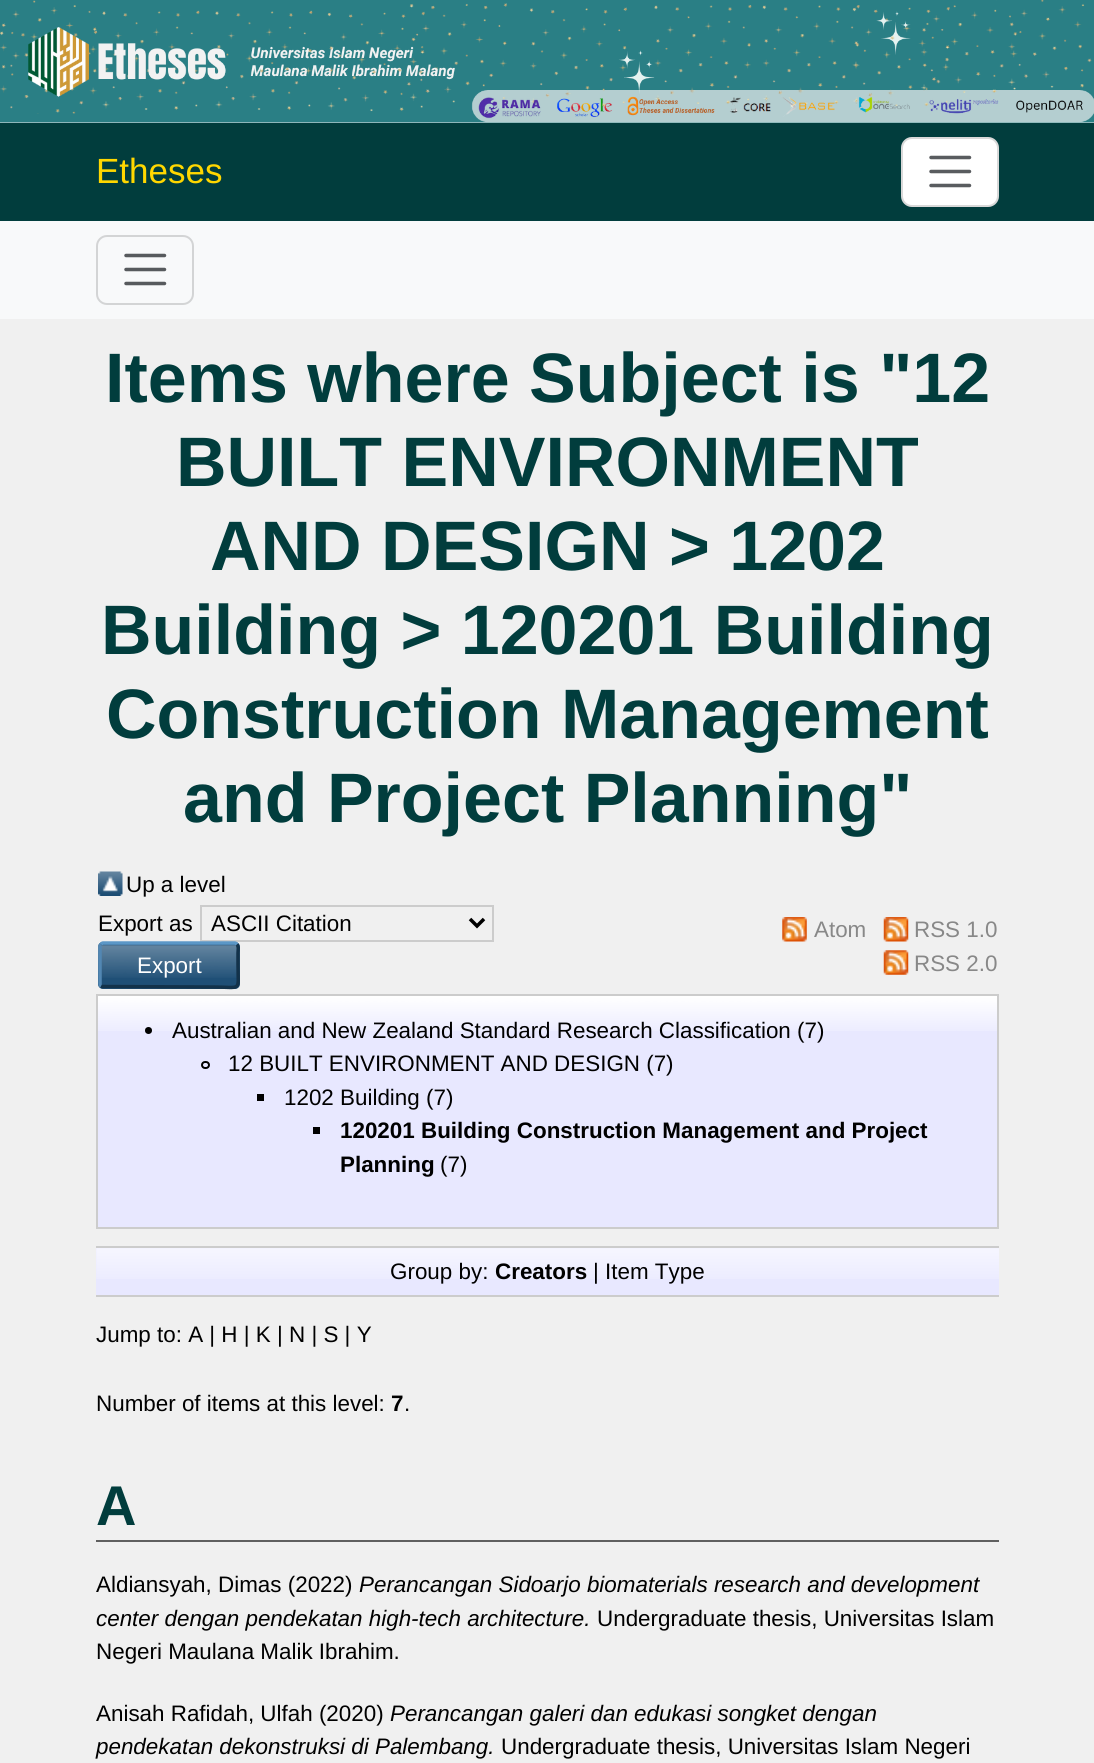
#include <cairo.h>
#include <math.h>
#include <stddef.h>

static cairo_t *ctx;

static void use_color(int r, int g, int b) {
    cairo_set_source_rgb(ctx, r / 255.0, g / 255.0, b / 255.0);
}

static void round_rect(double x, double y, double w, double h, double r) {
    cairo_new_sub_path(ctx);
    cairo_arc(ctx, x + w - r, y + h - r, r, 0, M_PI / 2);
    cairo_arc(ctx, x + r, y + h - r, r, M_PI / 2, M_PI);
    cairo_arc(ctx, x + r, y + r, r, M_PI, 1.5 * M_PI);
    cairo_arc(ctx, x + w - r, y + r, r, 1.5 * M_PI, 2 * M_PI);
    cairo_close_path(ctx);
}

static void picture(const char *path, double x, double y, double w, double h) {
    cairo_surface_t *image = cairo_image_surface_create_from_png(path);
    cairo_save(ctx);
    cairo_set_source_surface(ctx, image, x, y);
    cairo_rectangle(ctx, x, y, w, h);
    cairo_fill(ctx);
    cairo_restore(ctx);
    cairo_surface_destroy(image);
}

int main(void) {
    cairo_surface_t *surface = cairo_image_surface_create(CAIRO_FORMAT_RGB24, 1094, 1763);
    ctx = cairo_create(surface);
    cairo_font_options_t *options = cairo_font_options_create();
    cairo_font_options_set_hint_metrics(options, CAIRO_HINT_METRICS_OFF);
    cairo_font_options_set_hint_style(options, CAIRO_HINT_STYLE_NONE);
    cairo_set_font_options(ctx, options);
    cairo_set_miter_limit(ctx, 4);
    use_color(240, 240, 240);
    cairo_paint(ctx);
    picture("img1.png", 0, 0, 1094, 123);
    use_color(1, 61, 61);
    cairo_rectangle(ctx, 0, 123, 1094, 98);
    cairo_fill(ctx);
    cairo_select_font_face(ctx, "Liberation Sans", CAIRO_FONT_SLANT_NORMAL, CAIRO_FONT_WEIGHT_NORMAL);
    cairo_set_font_size(ctx, 35);
    use_color(255, 215, 0);
    cairo_move_to(ctx, 96, 183);
    cairo_show_text(ctx, "Etheses");
    use_color(255, 255, 255);
    round_rect(901, 137, 98, 70, 11);
    cairo_fill(ctx);
    round_rect(902, 138, 96, 68, 10);
    cairo_set_source_rgba(ctx, 0, 0, 0, 0.15);
    cairo_stroke(ctx);
    cairo_new_path(ctx);
    cairo_move_to(ctx, 931, 157.5);
    cairo_line_to(ctx, 969.5, 157.5);
    cairo_move_to(ctx, 931, 171.5);
    cairo_line_to(ctx, 969.5, 171.5);
    cairo_move_to(ctx, 931, 185.5);
    cairo_line_to(ctx, 969.5, 185.5);
    use_color(89, 92, 95);
    cairo_set_line_width(ctx, 3.5);
    cairo_set_line_cap(ctx, CAIRO_LINE_CAP_ROUND);
    cairo_stroke(ctx);
    use_color(248, 249, 250);
    cairo_rectangle(ctx, 0, 221, 1094, 98);
    cairo_fill(ctx);
    round_rect(97, 236, 96, 68, 10);
    use_color(211, 212, 213);
    cairo_set_line_width(ctx, 2);
    cairo_set_line_cap(ctx, CAIRO_LINE_CAP_BUTT);
    cairo_stroke(ctx);
    cairo_new_path(ctx);
    cairo_move_to(ctx, 126, 255.5);
    cairo_line_to(ctx, 164.5, 255.5);
    cairo_move_to(ctx, 126, 269.5);
    cairo_line_to(ctx, 164.5, 269.5);
    cairo_move_to(ctx, 126, 283.5);
    cairo_line_to(ctx, 164.5, 283.5);
    use_color(87, 90, 93);
    cairo_set_line_width(ctx, 3.5);
    cairo_set_line_cap(ctx, CAIRO_LINE_CAP_ROUND);
    cairo_stroke(ctx);
    cairo_select_font_face(ctx, "Liberation Sans", CAIRO_FONT_SLANT_NORMAL, CAIRO_FONT_WEIGHT_BOLD);
    cairo_set_font_size(ctx, 70);
    use_color(1, 61, 61);
    cairo_move_to(ctx, 105, 402);
    cairo_show_text(ctx, "Items where Subject is \"12");
    cairo_move_to(ctx, 176, 486);
    cairo_show_text(ctx, "BUILT ENVIRONMENT");
    cairo_move_to(ctx, 210, 570);
    cairo_show_text(ctx, "AND DESIGN > 1202");
    cairo_move_to(ctx, 101, 654);
    cairo_show_text(ctx, "Building > 120201 Building");
    cairo_move_to(ctx, 106, 738);
    cairo_show_text(ctx, "Construction Management");
    cairo_move_to(ctx, 183, 822);
    cairo_show_text(ctx, "and Project Planning\"");
    picture("img2.png", 98, 871, 25, 25);
    cairo_select_font_face(ctx, "Liberation Sans", CAIRO_FONT_SLANT_NORMAL, CAIRO_FONT_WEIGHT_NORMAL);
    cairo_set_font_size(ctx, 22.4);
    use_color(0, 0, 0);
    cairo_move_to(ctx, 126, 892);
    cairo_show_text(ctx, "Up a level");
    cairo_move_to(ctx, 98, 931);
    cairo_show_text(ctx, "Export as");
    cairo_rectangle(ctx, 201, 906, 292, 35);
    use_color(204, 204, 204);
    cairo_set_line_width(ctx, 2);
    cairo_set_line_cap(ctx, CAIRO_LINE_CAP_BUTT);
    cairo_stroke(ctx);
    cairo_new_path(ctx);
    cairo_move_to(ctx, 470, 919);
    cairo_line_to(ctx, 477, 926);
    cairo_line_to(ctx, 484, 919);
    use_color(0, 0, 0);
    cairo_set_line_width(ctx, 3.5);
    cairo_stroke(ctx);
    cairo_move_to(ctx, 211, 931);
    cairo_show_text(ctx, "ASCII Citation");
    use_color(31, 79, 118);
    round_rect(98, 942, 142, 47, 5);
    cairo_fill(ctx);
    picture("img3.png", 98, 944, 142, 34);
    cairo_new_path(ctx);
    cairo_move_to(ctx, 101, 944.5);
    cairo_curve_to(ctx, 101.5, 943.5, 102.5, 943, 103, 943);
    cairo_line_to(ctx, 234.5, 943);
    cairo_curve_to(ctx, 235.5, 943, 236.5, 943.5, 237, 944.5);
    use_color(91, 151, 199);
    cairo_stroke(ctx);
    cairo_new_path(ctx);
    cairo_move_to(ctx, 237, 944.5);
    cairo_curve_to(ctx, 239, 946.5, 238, 951, 238, 953);
    cairo_line_to(ctx, 238, 965);
    cairo_curve_to(ctx, 238, 992.5, 242.5, 987, 212.5, 987);
    cairo_line_to(ctx, 102, 986.5);
    cairo_line_to(ctx, 101, 986);
    use_color(19, 50, 74);
    cairo_stroke(ctx);
    cairo_new_path(ctx);
    cairo_move_to(ctx, 101, 986);
    cairo_curve_to(ctx, 100, 985.5, 100, 984.5, 100, 983.5);
    cairo_line_to(ctx, 100, 947);
    cairo_curve_to(ctx, 100, 946, 100, 945, 101, 944.5);
    use_color(82, 135, 179);
    cairo_stroke(ctx);
    use_color(255, 255, 255);
    cairo_move_to(ctx, 137, 973);
    cairo_show_text(ctx, "Export");
    picture("img4.png", 782, 917, 25, 25);
    use_color(136, 136, 136);
    cairo_move_to(ctx, 814, 937);
    cairo_show_text(ctx, "Atom");
    picture("img5.png", 883, 917, 26, 25);
    cairo_move_to(ctx, 914, 937);
    cairo_show_text(ctx, "RSS 1.0");
    picture("img6.png", 883, 950, 26, 25);
    cairo_move_to(ctx, 914, 971);
    cairo_show_text(ctx, "RSS 2.0");
    use_color(232, 232, 255);
    cairo_rectangle(ctx, 98, 997, 899, 230);
    cairo_fill(ctx);
    picture("img7.png", 98, 996, 899, 35);
    cairo_rectangle(ctx, 97, 995, 901, 233);
    use_color(204, 204, 204);
    cairo_set_line_width(ctx, 2);
    cairo_stroke(ctx);
    use_color(0, 0, 0);
    cairo_arc(ctx, 148.5, 1030.5, 3.5, 0, 2 * M_PI);
    cairo_fill(ctx);
    cairo_move_to(ctx, 172, 1038);
    cairo_show_text(ctx, "Australian and New Zealand Standard Research Classification (7)");
    round_rect(202, 1062, 7, 6, 3);
    cairo_stroke(ctx);
    cairo_move_to(ctx, 228, 1071);
    cairo_show_text(ctx, "12 BUILT ENVIRONMENT AND DESIGN (7)");
    cairo_rectangle(ctx, 257, 1094, 7, 7);
    cairo_fill(ctx);
    cairo_move_to(ctx, 284, 1105);
    cairo_show_text(ctx, "1202 Building (7)");
    cairo_rectangle(ctx, 313, 1127, 7, 7);
    cairo_fill(ctx);
    cairo_select_font_face(ctx, "Liberation Sans", CAIRO_FONT_SLANT_NORMAL, CAIRO_FONT_WEIGHT_BOLD);
    cairo_move_to(ctx, 340, 1138);
    cairo_show_text(ctx, "120201 Building Construction Management and Project");
    cairo_move_to(ctx, 340, 1172);
    cairo_show_text(ctx, "Planning");
    cairo_select_font_face(ctx, "Liberation Sans", CAIRO_FONT_SLANT_NORMAL, CAIRO_FONT_WEIGHT_NORMAL);
    cairo_move_to(ctx, 440, 1172);
    cairo_show_text(ctx, "(7)");
    use_color(232, 232, 255);
    cairo_rectangle(ctx, 96, 1248, 903, 47);
    cairo_fill(ctx);
    picture("img8.png", 96, 1248, 903, 31);
    use_color(204, 204, 204);
    cairo_rectangle(ctx, 96, 1246, 903, 2);
    cairo_fill(ctx);
    cairo_rectangle(ctx, 96, 1295, 903, 2);
    cairo_fill(ctx);
    use_color(0, 0, 0);
    cairo_move_to(ctx, 390, 1279);
    cairo_show_text(ctx, "Group by:");
    cairo_select_font_face(ctx, "Liberation Sans", CAIRO_FONT_SLANT_NORMAL, CAIRO_FONT_WEIGHT_BOLD);
    cairo_move_to(ctx, 495, 1279);
    cairo_show_text(ctx, "Creators");
    cairo_select_font_face(ctx, "Liberation Sans", CAIRO_FONT_SLANT_NORMAL, CAIRO_FONT_WEIGHT_NORMAL);
    cairo_move_to(ctx, 593, 1279);
    cairo_show_text(ctx, "| Item Type");
    cairo_move_to(ctx, 96, 1342);
    cairo_show_text(ctx, "Jump to: A | H | K | N | S | Y");
    cairo_move_to(ctx, 96, 1411);
    cairo_show_text(ctx, "Number of items at this level:");
    cairo_select_font_face(ctx, "Liberation Sans", CAIRO_FONT_SLANT_NORMAL, CAIRO_FONT_WEIGHT_BOLD);
    cairo_move_to(ctx, 391, 1411);
    cairo_show_text(ctx, "7");
    cairo_select_font_face(ctx, "Liberation Sans", CAIRO_FONT_SLANT_NORMAL, CAIRO_FONT_WEIGHT_NORMAL);
    cairo_move_to(ctx, 404, 1411);
    cairo_show_text(ctx, ".");
    use_color(96, 96, 96);
    cairo_rectangle(ctx, 96, 1540, 903, 2);
    cairo_fill(ctx);
    cairo_select_font_face(ctx, "Liberation Sans", CAIRO_FONT_SLANT_NORMAL, CAIRO_FONT_WEIGHT_BOLD);
    cairo_set_font_size(ctx, 56);
    use_color(1, 61, 61);
    cairo_move_to(ctx, 96, 1525);
    cairo_show_text(ctx, "A");
    cairo_select_font_face(ctx, "Liberation Sans", CAIRO_FONT_SLANT_NORMAL, CAIRO_FONT_WEIGHT_NORMAL);
    cairo_set_font_size(ctx, 22.4);
    use_color(0, 0, 0);
    cairo_move_to(ctx, 96, 1592);
    cairo_show_text(ctx, "Aldiansyah, Dimas (2022)");
    cairo_select_font_face(ctx, "Liberation Sans", CAIRO_FONT_SLANT_ITALIC, CAIRO_FONT_WEIGHT_NORMAL);
    cairo_move_to(ctx, 359, 1592);
    cairo_show_text(ctx, "Perancangan Sidoarjo biomaterials research and development");
    cairo_move_to(ctx, 96, 1626);
    cairo_show_text(ctx, "center dengan pendekatan high-tech architecture.");
    cairo_select_font_face(ctx, "Liberation Sans", CAIRO_FONT_SLANT_NORMAL, CAIRO_FONT_WEIGHT_NORMAL);
    cairo_move_to(ctx, 597, 1626);
    cairo_show_text(ctx, "Undergraduate thesis, Universitas Islam");
    cairo_move_to(ctx, 96, 1659);
    cairo_show_text(ctx, "Negeri Maulana Malik Ibrahim.");
    cairo_move_to(ctx, 96, 1721);
    cairo_show_text(ctx, "Anisah Rafidah, Ulfah (2020)");
    cairo_select_font_face(ctx, "Liberation Sans", CAIRO_FONT_SLANT_ITALIC, CAIRO_FONT_WEIGHT_NORMAL);
    cairo_move_to(ctx, 390, 1721);
    cairo_show_text(ctx, "Perancangan galeri dan edukasi songket dengan");
    cairo_move_to(ctx, 96, 1754);
    cairo_show_text(ctx, "pendekatan dekonstruksi di Palembang.");
    cairo_select_font_face(ctx, "Liberation Sans", CAIRO_FONT_SLANT_NORMAL, CAIRO_FONT_WEIGHT_NORMAL);
    cairo_move_to(ctx, 501, 1754);
    cairo_show_text(ctx, "Undergraduate thesis, Universitas Islam Negeri");
    cairo_surface_write_to_png(surface, "result.png");
    cairo_font_options_destroy(options);
    cairo_destroy(ctx);
    cairo_surface_destroy(surface);
    return 0;
}
